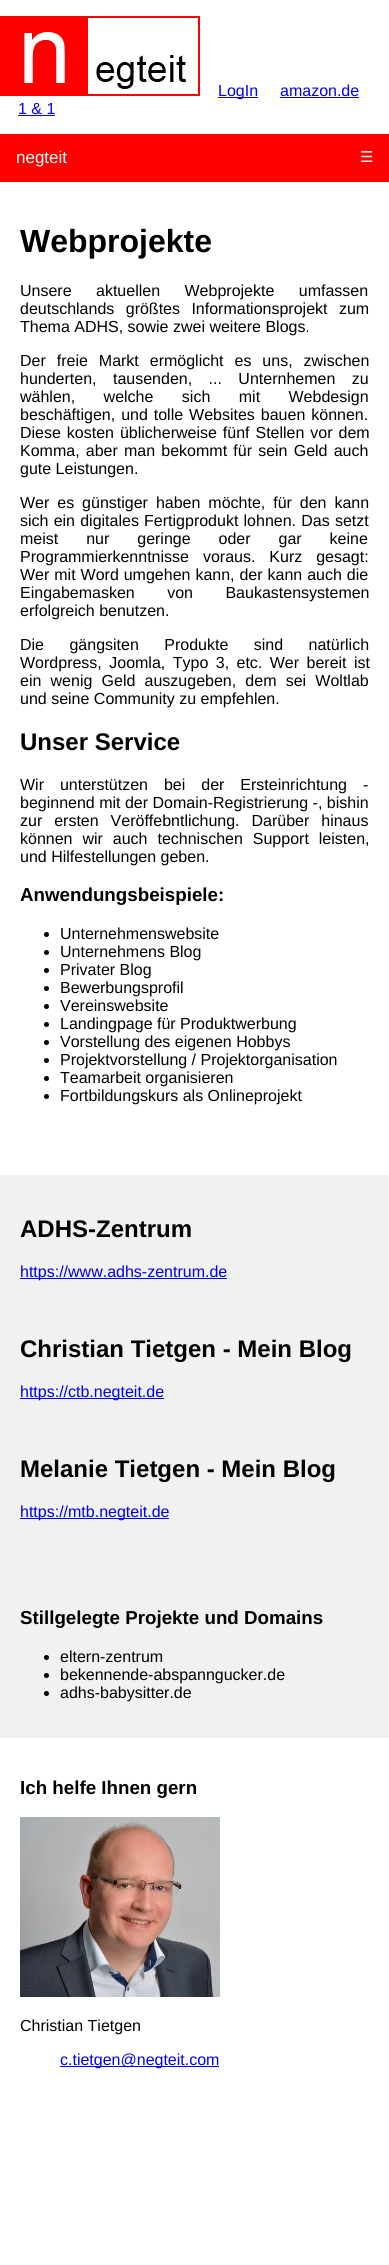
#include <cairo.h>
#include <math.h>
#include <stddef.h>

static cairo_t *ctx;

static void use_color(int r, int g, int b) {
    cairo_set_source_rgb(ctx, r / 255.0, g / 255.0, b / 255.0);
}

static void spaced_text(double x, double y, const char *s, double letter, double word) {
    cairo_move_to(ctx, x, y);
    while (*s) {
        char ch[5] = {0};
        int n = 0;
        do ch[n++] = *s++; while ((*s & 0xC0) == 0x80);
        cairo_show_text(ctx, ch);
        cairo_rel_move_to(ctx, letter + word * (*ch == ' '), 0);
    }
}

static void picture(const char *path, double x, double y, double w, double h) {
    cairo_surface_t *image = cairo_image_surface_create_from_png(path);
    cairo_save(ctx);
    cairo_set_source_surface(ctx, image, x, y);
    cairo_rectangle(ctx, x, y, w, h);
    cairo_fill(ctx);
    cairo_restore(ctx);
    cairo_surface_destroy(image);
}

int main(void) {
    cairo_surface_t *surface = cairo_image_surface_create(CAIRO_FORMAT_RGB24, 389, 2265);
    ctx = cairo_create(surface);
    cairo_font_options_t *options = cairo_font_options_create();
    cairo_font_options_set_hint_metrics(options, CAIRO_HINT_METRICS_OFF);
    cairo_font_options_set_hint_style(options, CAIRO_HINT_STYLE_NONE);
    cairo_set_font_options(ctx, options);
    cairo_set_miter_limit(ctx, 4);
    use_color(255, 255, 255);
    cairo_paint(ctx);
    picture("img1.png", 0, 16, 200, 80);
    use_color(0, 0, 238);
    cairo_rectangle(ctx, 218, 97, 40, 1);
    cairo_fill(ctx);
    cairo_select_font_face(ctx, "Liberation Sans", CAIRO_FONT_SLANT_NORMAL, CAIRO_FONT_WEIGHT_NORMAL);
    cairo_set_font_size(ctx, 16);
    cairo_move_to(ctx, 218, 96);
    cairo_show_text(ctx, "LogIn");
    cairo_move_to(ctx, 280, 96);
    cairo_show_text(ctx, "amazon.de");
    cairo_rectangle(ctx, 280, 97, 79, 1);
    cairo_fill(ctx);
    cairo_move_to(ctx, 18, 114);
    cairo_show_text(ctx, "1 & 1");
    cairo_rectangle(ctx, 18, 115, 37, 1);
    cairo_fill(ctx);
    use_color(255, 0, 0);
    cairo_rectangle(ctx, 0, 134, 389, 48);
    cairo_fill(ctx);
    cairo_set_font_size(ctx, 17);
    use_color(255, 255, 255);
    cairo_move_to(ctx, 16, 163);
    cairo_show_text(ctx, "negteit");
    cairo_select_font_face(ctx, "DejaVu Sans", CAIRO_FONT_SLANT_NORMAL, CAIRO_FONT_WEIGHT_NORMAL);
    cairo_set_font_size(ctx, 15);
    cairo_move_to(ctx, 360, 162);
    cairo_show_text(ctx, "☰");
    cairo_select_font_face(ctx, "Liberation Sans", CAIRO_FONT_SLANT_NORMAL, CAIRO_FONT_WEIGHT_BOLD);
    cairo_set_font_size(ctx, 32);
    use_color(0, 0, 0);
    cairo_move_to(ctx, 20, 252);
    cairo_show_text(ctx, "Webprojekte");
    cairo_select_font_face(ctx, "Liberation Sans", CAIRO_FONT_SLANT_NORMAL, CAIRO_FONT_WEIGHT_NORMAL);
    cairo_set_font_size(ctx, 16);
    spaced_text(20, 296, "Unsere aktuellen Webprojekte umfassen", 0, 20);
    spaced_text(20, 314, "deutschlands größtes Informationsprojekt zum", 0, 7);
    cairo_move_to(ctx, 20, 332);
    cairo_show_text(ctx, "Thema ADHS, sowie zwei weitere Blogs.");
    spaced_text(20, 366, "Der freie Markt ermöglicht es uns, zwischen", 0, 6.5);
    spaced_text(20, 384, "hunderten, tausenden, ... Unternhemen zu", 0, 12);
    spaced_text(20, 402, "wählen, welche sich mit Webdesign", 0, 24);
    spaced_text(20, 420, "beschäftigen, und tolle Websites bauen können.", 0, 1.5);
    spaced_text(20, 438, "Diese kosten üblicherweise fünf Stellen vor dem", 0, 1.5);
    spaced_text(20, 456, "Komma, aber man bekommt für sein Geld auch", 0, 1.75);
    cairo_move_to(ctx, 20, 474);
    cairo_show_text(ctx, "gute Leistungen.");
    spaced_text(20, 508, "Wer es günstiger haben möchte, für den kann", 0, 3.5);
    spaced_text(20, 526, "sich ein digitales Fertigprodukt lohnen. Das setzt", 0, 0.75);
    spaced_text(20, 544, "meist nur geringe oder gar keine", 0, 23.5);
    spaced_text(20, 562, "Programmierkenntnisse voraus. Kurz gesagt:", 0, 9.5);
    spaced_text(20, 580, "Wer mit Word umgehen kann, der kann auch die", 0, 0.5);
    spaced_text(20, 598, "Eingabemasken von Baukastensystemen", 0, 28);
    cairo_move_to(ctx, 20, 616);
    cairo_show_text(ctx, "erfolgreich benutzen.");
    spaced_text(20, 650, "Die gängsiten Produkte sind natürlich", 0, 21);
    spaced_text(20, 668, "Wordpress, Joomla, Typo 3, etc. Wer bereit ist", 0, 3);
    spaced_text(20, 686, "ein wenig Geld auszugeben, dem sei Woltlab", 0, 4.75);
    cairo_move_to(ctx, 20, 704);
    cairo_show_text(ctx, "und seine Community zu empfehlen.");
    cairo_select_font_face(ctx, "Liberation Sans", CAIRO_FONT_SLANT_NORMAL, CAIRO_FONT_WEIGHT_BOLD);
    cairo_set_font_size(ctx, 24);
    cairo_move_to(ctx, 20, 750);
    cairo_show_text(ctx, "Unser Service");
    cairo_select_font_face(ctx, "Liberation Sans", CAIRO_FONT_SLANT_NORMAL, CAIRO_FONT_WEIGHT_NORMAL);
    cairo_set_font_size(ctx, 16);
    spaced_text(20, 790, "Wir unterstützen bei der Ersteinrichtung -", 0, 11.5);
    cairo_move_to(ctx, 20, 808);
    cairo_show_text(ctx, "beginnend mit der Domain-Registrierung -, bishin");
    spaced_text(20, 826, "zur ersten Veröffebntlichung. Darüber hinaus", 0, 7.5);
    spaced_text(20, 844, "können wir auch technischen Support leisten,", 0, 5.5);
    cairo_move_to(ctx, 20, 862);
    cairo_show_text(ctx, "und Hilfestellungen geben.");
    cairo_select_font_face(ctx, "Liberation Sans", CAIRO_FONT_SLANT_NORMAL, CAIRO_FONT_WEIGHT_BOLD);
    cairo_set_font_size(ctx, 18.75);
    cairo_move_to(ctx, 20, 901);
    cairo_show_text(ctx, "Anwendungsbeispiele:");
    cairo_new_path(ctx);
    cairo_arc(ctx, 46.5, 934.5, 2.5, 0, 2 * M_PI);
    cairo_fill(ctx);
    cairo_select_font_face(ctx, "Liberation Sans", CAIRO_FONT_SLANT_NORMAL, CAIRO_FONT_WEIGHT_NORMAL);
    cairo_set_font_size(ctx, 16);
    cairo_move_to(ctx, 60, 939);
    cairo_show_text(ctx, "Unternehmenswebsite");
    cairo_new_path(ctx);
    cairo_arc(ctx, 46.5, 952.5, 2.5, 0, 2 * M_PI);
    cairo_fill(ctx);
    cairo_move_to(ctx, 60, 957);
    cairo_show_text(ctx, "Unternehmens Blog");
    cairo_new_path(ctx);
    cairo_arc(ctx, 46.5, 970.5, 2.5, 0, 2 * M_PI);
    cairo_fill(ctx);
    cairo_move_to(ctx, 60, 975);
    cairo_show_text(ctx, "Privater Blog");
    cairo_new_path(ctx);
    cairo_arc(ctx, 46.5, 988.5, 2.5, 0, 2 * M_PI);
    cairo_fill(ctx);
    cairo_move_to(ctx, 60, 993);
    cairo_show_text(ctx, "Bewerbungsprofil");
    cairo_new_path(ctx);
    cairo_arc(ctx, 46.5, 1006.5, 2.5, 0, 2 * M_PI);
    cairo_fill(ctx);
    cairo_move_to(ctx, 60, 1011);
    cairo_show_text(ctx, "Vereinswebsite");
    cairo_new_path(ctx);
    cairo_arc(ctx, 46.5, 1024.5, 2.5, 0, 2 * M_PI);
    cairo_fill(ctx);
    cairo_move_to(ctx, 60, 1029);
    cairo_show_text(ctx, "Landingpage für Produktwerbung");
    cairo_new_path(ctx);
    cairo_arc(ctx, 46.5, 1042.5, 2.5, 0, 2 * M_PI);
    cairo_fill(ctx);
    cairo_move_to(ctx, 60, 1047);
    cairo_show_text(ctx, "Vorstellung des eigenen Hobbys");
    cairo_new_path(ctx);
    cairo_arc(ctx, 46.5, 1060.5, 2.5, 0, 2 * M_PI);
    cairo_fill(ctx);
    cairo_move_to(ctx, 60, 1065);
    cairo_show_text(ctx, "Projektvorstellung / Projektorganisation");
    cairo_new_path(ctx);
    cairo_arc(ctx, 46.5, 1078.5, 2.5, 0, 2 * M_PI);
    cairo_fill(ctx);
    cairo_move_to(ctx, 60, 1083);
    cairo_show_text(ctx, "Teamarbeit organisieren");
    cairo_new_path(ctx);
    cairo_arc(ctx, 46.5, 1096.5, 2.5, 0, 2 * M_PI);
    cairo_fill(ctx);
    cairo_move_to(ctx, 60, 1101);
    cairo_show_text(ctx, "Fortbildungskurs als Onlineprojekt");
    use_color(241, 241, 241);
    cairo_rectangle(ctx, 0, 1175, 389, 563);
    cairo_fill(ctx);
    cairo_select_font_face(ctx, "Liberation Sans", CAIRO_FONT_SLANT_NORMAL, CAIRO_FONT_WEIGHT_BOLD);
    cairo_set_font_size(ctx, 24);
    use_color(0, 0, 0);
    cairo_move_to(ctx, 20, 1237);
    cairo_show_text(ctx, "ADHS-Zentrum");
    use_color(0, 0, 238);
    cairo_rectangle(ctx, 20, 1278, 207, 1);
    cairo_fill(ctx);
    cairo_select_font_face(ctx, "Liberation Sans", CAIRO_FONT_SLANT_NORMAL, CAIRO_FONT_WEIGHT_NORMAL);
    cairo_set_font_size(ctx, 16);
    cairo_move_to(ctx, 20, 1277);
    cairo_show_text(ctx, "https://www.adhs-zentrum.de");
    cairo_select_font_face(ctx, "Liberation Sans", CAIRO_FONT_SLANT_NORMAL, CAIRO_FONT_WEIGHT_BOLD);
    cairo_set_font_size(ctx, 24);
    use_color(0, 0, 0);
    cairo_move_to(ctx, 20, 1357);
    cairo_show_text(ctx, "Christian Tietgen - Mein Blog");
    use_color(0, 0, 238);
    cairo_rectangle(ctx, 20, 1398, 144, 1);
    cairo_fill(ctx);
    cairo_select_font_face(ctx, "Liberation Sans", CAIRO_FONT_SLANT_NORMAL, CAIRO_FONT_WEIGHT_NORMAL);
    cairo_set_font_size(ctx, 16);
    cairo_move_to(ctx, 20, 1397);
    cairo_show_text(ctx, "https://ctb.negteit.de");
    cairo_select_font_face(ctx, "Liberation Sans", CAIRO_FONT_SLANT_NORMAL, CAIRO_FONT_WEIGHT_BOLD);
    cairo_set_font_size(ctx, 24);
    use_color(0, 0, 0);
    cairo_move_to(ctx, 20, 1477);
    cairo_show_text(ctx, "Melanie Tietgen - Mein Blog");
    use_color(0, 0, 238);
    cairo_rectangle(ctx, 20, 1518, 149, 1);
    cairo_fill(ctx);
    cairo_select_font_face(ctx, "Liberation Sans", CAIRO_FONT_SLANT_NORMAL, CAIRO_FONT_WEIGHT_NORMAL);
    cairo_set_font_size(ctx, 16);
    cairo_move_to(ctx, 20, 1517);
    cairo_show_text(ctx, "https://mtb.negteit.de");
    cairo_select_font_face(ctx, "Liberation Sans", CAIRO_FONT_SLANT_NORMAL, CAIRO_FONT_WEIGHT_BOLD);
    cairo_set_font_size(ctx, 18.75);
    use_color(0, 0, 0);
    cairo_move_to(ctx, 20, 1624);
    cairo_show_text(ctx, "Stillgelegte Projekte und Domains");
    cairo_new_path(ctx);
    cairo_arc(ctx, 46.5, 1657.5, 2.5, 0, 2 * M_PI);
    cairo_fill(ctx);
    cairo_select_font_face(ctx, "Liberation Sans", CAIRO_FONT_SLANT_NORMAL, CAIRO_FONT_WEIGHT_NORMAL);
    cairo_set_font_size(ctx, 16);
    cairo_move_to(ctx, 60, 1662);
    cairo_show_text(ctx, "eltern-zentrum");
    cairo_new_path(ctx);
    cairo_arc(ctx, 46.5, 1675.5, 2.5, 0, 2 * M_PI);
    cairo_fill(ctx);
    cairo_move_to(ctx, 60, 1680);
    cairo_show_text(ctx, "bekennende-abspanngucker.de");
    cairo_new_path(ctx);
    cairo_arc(ctx, 46.5, 1693.5, 2.5, 0, 2 * M_PI);
    cairo_fill(ctx);
    cairo_move_to(ctx, 60, 1698);
    cairo_show_text(ctx, "adhs-babysitter.de");
    cairo_select_font_face(ctx, "Liberation Sans", CAIRO_FONT_SLANT_NORMAL, CAIRO_FONT_WEIGHT_BOLD);
    cairo_set_font_size(ctx, 18.75);
    cairo_move_to(ctx, 20, 1794);
    cairo_show_text(ctx, "Ich helfe Ihnen gern");
    picture("img2.png", 20, 1817, 200, 180);
    cairo_select_font_face(ctx, "Liberation Sans", CAIRO_FONT_SLANT_NORMAL, CAIRO_FONT_WEIGHT_NORMAL);
    cairo_set_font_size(ctx, 16);
    cairo_move_to(ctx, 20, 2031);
    cairo_show_text(ctx, "Christian Tietgen");
    use_color(0, 0, 238);
    cairo_rectangle(ctx, 60, 2066, 159, 1);
    cairo_fill(ctx);
    cairo_move_to(ctx, 60, 2065);
    cairo_show_text(ctx, "c.tietgen@negteit.com");
    cairo_surface_write_to_png(surface, "result.png");
    cairo_font_options_destroy(options);
    cairo_destroy(ctx);
    cairo_surface_destroy(surface);
    return 0;
}
